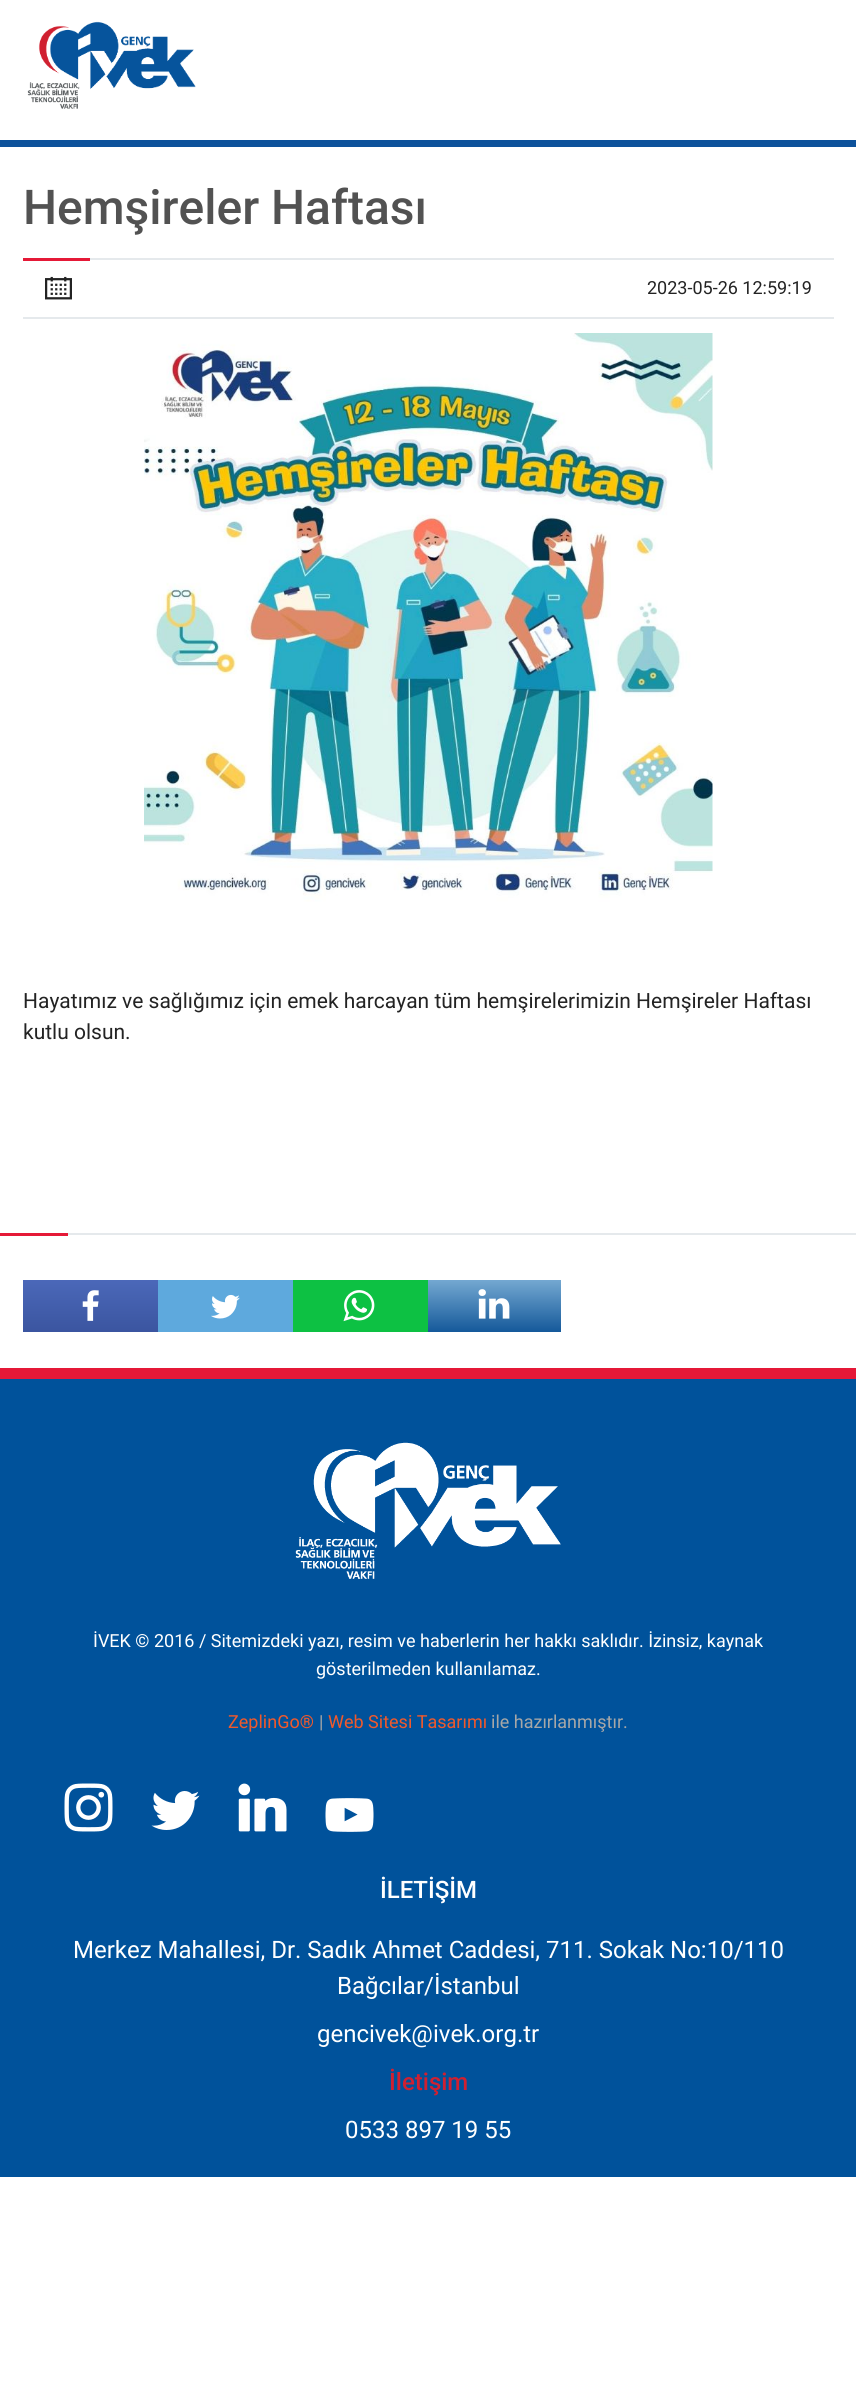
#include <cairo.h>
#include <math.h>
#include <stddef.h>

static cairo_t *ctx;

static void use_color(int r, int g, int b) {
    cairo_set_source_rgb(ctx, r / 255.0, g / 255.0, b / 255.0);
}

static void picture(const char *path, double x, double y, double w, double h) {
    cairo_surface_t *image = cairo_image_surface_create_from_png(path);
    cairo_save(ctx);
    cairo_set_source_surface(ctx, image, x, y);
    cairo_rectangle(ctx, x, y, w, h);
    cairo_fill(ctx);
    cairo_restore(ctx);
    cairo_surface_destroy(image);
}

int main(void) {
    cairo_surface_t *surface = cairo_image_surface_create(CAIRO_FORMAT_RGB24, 856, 2392);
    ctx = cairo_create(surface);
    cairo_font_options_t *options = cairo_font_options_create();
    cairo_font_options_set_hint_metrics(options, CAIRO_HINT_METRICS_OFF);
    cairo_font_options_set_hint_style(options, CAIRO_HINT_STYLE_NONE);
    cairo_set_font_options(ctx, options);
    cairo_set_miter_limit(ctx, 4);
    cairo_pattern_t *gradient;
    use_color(255, 255, 255);
    cairo_paint(ctx);
    picture("img1.png", 27, 21, 169, 88);
    use_color(13, 82, 155);
    cairo_rectangle(ctx, 0, 140, 856, 7);
    cairo_fill(ctx);
    cairo_select_font_face(ctx, "Roboto Medium", CAIRO_FONT_SLANT_NORMAL, CAIRO_FONT_WEIGHT_NORMAL);
    cairo_set_font_size(ctx, 48);
    use_color(82, 82, 82);
    cairo_move_to(ctx, 23, 224);
    cairo_show_text(ctx, "Hemşireler Haftası");
    use_color(229, 233, 236);
    cairo_rectangle(ctx, 90, 258, 744, 2);
    cairo_fill(ctx);
    cairo_rectangle(ctx, 23, 317, 811, 2);
    cairo_fill(ctx);
    use_color(229, 25, 55);
    cairo_rectangle(ctx, 23, 258, 67, 3);
    cairo_fill(ctx);
    picture("img2.png", 45, 276, 27, 24);
    cairo_select_font_face(ctx, "Roboto", CAIRO_FONT_SLANT_NORMAL, CAIRO_FONT_WEIGHT_NORMAL);
    cairo_set_font_size(ctx, 18);
    use_color(35, 35, 35);
    cairo_move_to(ctx, 647, 294);
    cairo_show_text(ctx, "2023-05-26 12:59:19");
    picture("img3.png", 144, 333, 569, 569);
    cairo_set_font_size(ctx, 21);
    cairo_move_to(ctx, 23, 1008);
    cairo_show_text(ctx, "Hayatımız ve sağlığımız için emek harcayan tüm hemşirelerimizin Hemşireler Haftası");
    cairo_move_to(ctx, 23, 1039);
    cairo_show_text(ctx, "kutlu olsun.");
    use_color(229, 233, 236);
    cairo_rectangle(ctx, 68, 1233, 788, 2);
    cairo_fill(ctx);
    use_color(229, 25, 55);
    cairo_rectangle(ctx, 0, 1233, 68, 3);
    cairo_fill(ctx);
    gradient = cairo_pattern_create_linear(90, 1280, 90, 1332);
    cairo_pattern_add_color_stop_rgba(gradient, 0, 0.294, 0.408, 0.725, 1);
    cairo_pattern_add_color_stop_rgba(gradient, 1, 0.231, 0.333, 0.627, 1);
    cairo_set_source(ctx, gradient);
    cairo_pattern_destroy(gradient);
    cairo_rectangle(ctx, 23, 1280, 135, 52);
    cairo_fill(ctx);
    picture("img4.png", 82, 1290, 17, 31);
    use_color(94, 169, 221);
    cairo_rectangle(ctx, 158, 1280, 135, 52);
    cairo_fill(ctx);
    picture("img5.png", 211, 1294, 29, 25);
    use_color(13, 193, 67);
    cairo_rectangle(ctx, 293, 1280, 135, 52);
    cairo_fill(ctx);
    picture("img6.png", 343, 1290, 32, 32);
    gradient = cairo_pattern_create_linear(494, 1280, 494, 1332);
    cairo_pattern_add_color_stop_rgba(gradient, 0, 0.455, 0.659, 0.82, 1);
    cairo_pattern_add_color_stop_rgba(gradient, 1, 0.082, 0.349, 0.604, 1);
    cairo_set_source(ctx, gradient);
    cairo_pattern_destroy(gradient);
    cairo_rectangle(ctx, 428, 1280, 133, 52);
    cairo_fill(ctx);
    picture("img7.png", 478, 1289, 32, 30);
    use_color(0, 82, 155);
    cairo_rectangle(ctx, 0, 1379, 856, 798);
    cairo_fill(ctx);
    use_color(229, 24, 55);
    cairo_rectangle(ctx, 0, 1368, 856, 11);
    cairo_fill(ctx);
    picture("img8.png", 295, 1442, 266, 137);
    cairo_set_font_size(ctx, 18);
    use_color(255, 255, 255);
    cairo_move_to(ctx, 93, 1647);
    cairo_show_text(ctx, "İVEK © 2016 / Sitemizdeki yazı, resim ve haberlerin her hakkı saklıdır. İzinsiz, kaynak");
    cairo_move_to(ctx, 316, 1675);
    cairo_show_text(ctx, "gösterilmeden kullanılamaz.");
    use_color(241, 89, 43);
    cairo_move_to(ctx, 228, 1728);
    cairo_show_text(ctx, "ZeplinGo®");
    use_color(167, 167, 167);
    cairo_move_to(ctx, 319, 1728);
    cairo_show_text(ctx, "|");
    use_color(241, 89, 43);
    cairo_move_to(ctx, 328, 1728);
    cairo_show_text(ctx, "Web Sitesi Tasarımı");
    use_color(167, 167, 167);
    cairo_move_to(ctx, 491, 1728);
    cairo_show_text(ctx, "ile hazırlanmıştır.");
    picture("img9.png", 64, 1783, 49, 49);
    picture("img10.png", 151, 1791, 49, 39);
    picture("img11.png", 238, 1783, 49, 49);
    picture("img12.png", 325, 1798, 49, 34);
    cairo_select_font_face(ctx, "Roboto Medium", CAIRO_FONT_SLANT_NORMAL, CAIRO_FONT_WEIGHT_NORMAL);
    cairo_set_font_size(ctx, 24);
    use_color(255, 255, 255);
    cairo_move_to(ctx, 380, 1898);
    cairo_show_text(ctx, "İLETİŞİM");
    cairo_select_font_face(ctx, "Roboto", CAIRO_FONT_SLANT_NORMAL, CAIRO_FONT_WEIGHT_NORMAL);
    cairo_move_to(ctx, 73, 1958);
    cairo_show_text(ctx, "Merkez Mahallesi, Dr. Sadık Ahmet Caddesi, 711. Sokak No:10/110");
    cairo_move_to(ctx, 337, 1994);
    cairo_show_text(ctx, "Bağcılar/İstanbul");
    cairo_move_to(ctx, 317, 2042);
    cairo_show_text(ctx, "gencivek@ivek.org.tr");
    cairo_select_font_face(ctx, "Roboto Medium", CAIRO_FONT_SLANT_NORMAL, CAIRO_FONT_WEIGHT_NORMAL);
    use_color(208, 32, 49);
    cairo_move_to(ctx, 389, 2090);
    cairo_show_text(ctx, "İletişim");
    cairo_select_font_face(ctx, "Roboto", CAIRO_FONT_SLANT_NORMAL, CAIRO_FONT_WEIGHT_NORMAL);
    use_color(255, 255, 255);
    cairo_move_to(ctx, 345, 2138);
    cairo_show_text(ctx, "0533 897 19 55");
    cairo_surface_write_to_png(surface, "result.png");
    cairo_font_options_destroy(options);
    cairo_destroy(ctx);
    cairo_surface_destroy(surface);
    return 0;
}
